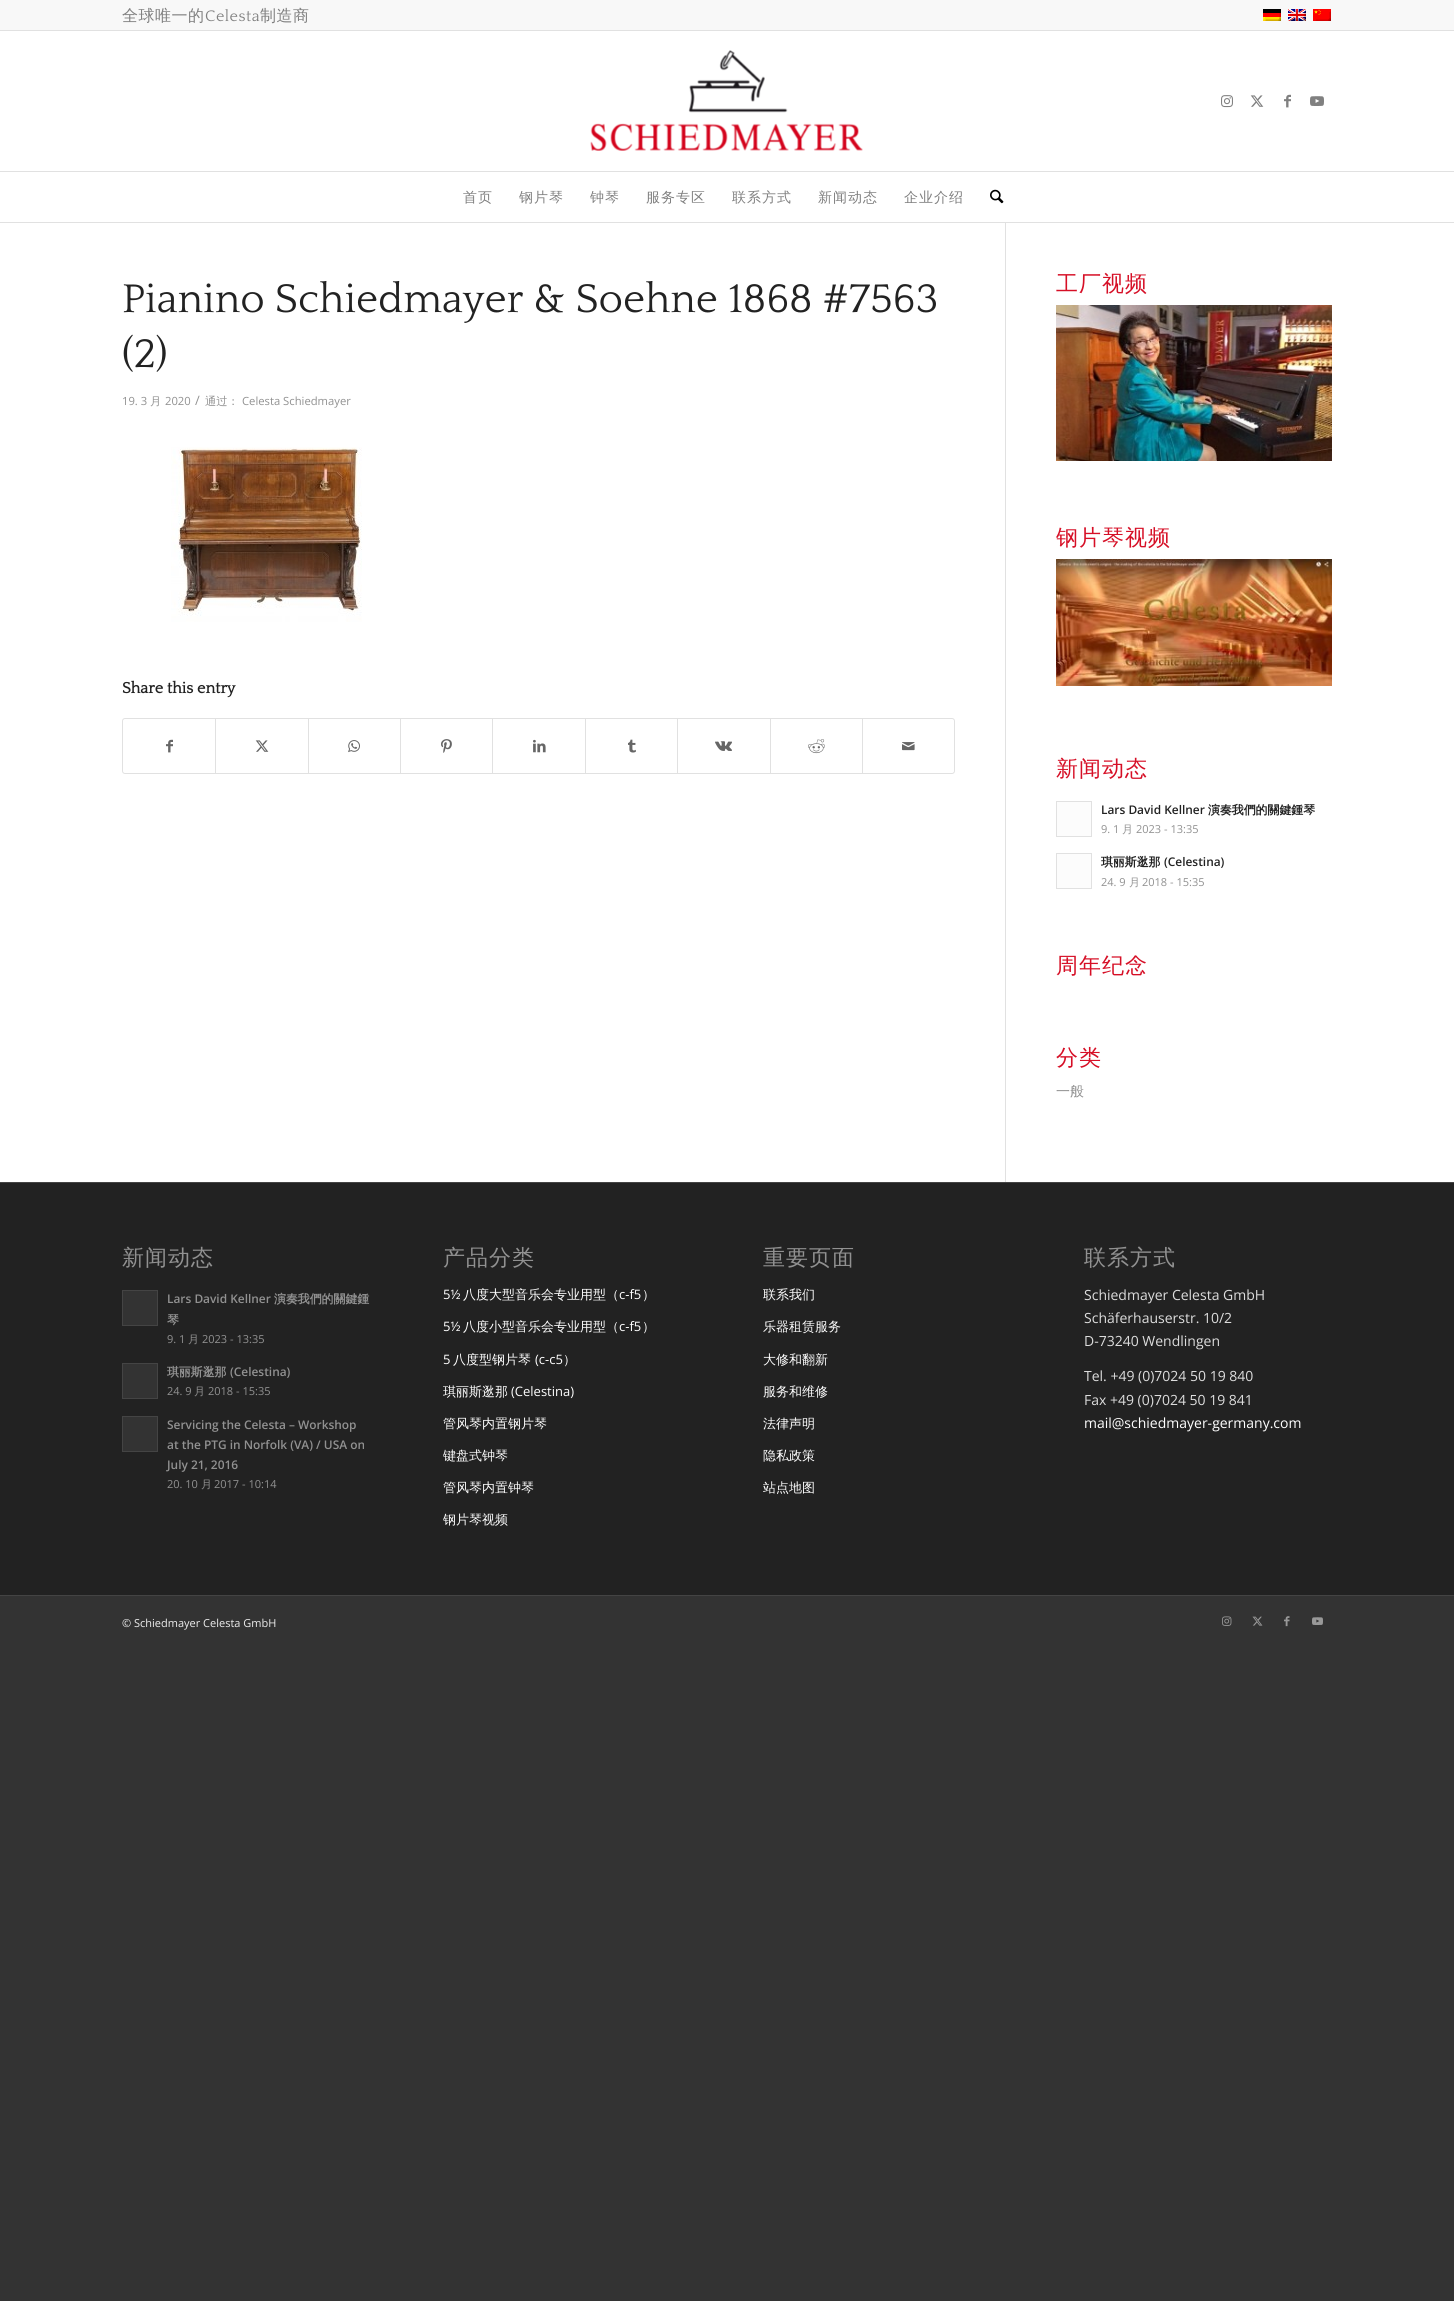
#include <cairo.h>
#include <math.h>
#include <stddef.h>

static cairo_t *ctx;

static void use_color(int r, int g, int b) {
    cairo_set_source_rgb(ctx, r / 255.0, g / 255.0, b / 255.0);
}

static void spaced_text(double x, double y, const char *s, double letter, double word) {
    cairo_move_to(ctx, x, y);
    while (*s) {
        char ch[5] = {0};
        int n = 0;
        do ch[n++] = *s++; while ((*s & 0xC0) == 0x80);
        cairo_show_text(ctx, ch);
        cairo_rel_move_to(ctx, letter + word * (*ch == ' '), 0);
    }
}

static void round_rect(double x, double y, double w, double h, double r) {
    cairo_new_sub_path(ctx);
    cairo_arc(ctx, x + w - r, y + h - r, r, 0, M_PI / 2);
    cairo_arc(ctx, x + r, y + h - r, r, M_PI / 2, M_PI);
    cairo_arc(ctx, x + r, y + r, r, M_PI, 1.5 * M_PI);
    cairo_arc(ctx, x + w - r, y + r, r, 1.5 * M_PI, 2 * M_PI);
    cairo_close_path(ctx);
}

static void picture(const char *path, double x, double y, double w, double h) {
    cairo_surface_t *image = cairo_image_surface_create_from_png(path);
    cairo_save(ctx);
    cairo_set_source_surface(ctx, image, x, y);
    cairo_rectangle(ctx, x, y, w, h);
    cairo_fill(ctx);
    cairo_restore(ctx);
    cairo_surface_destroy(image);
}

int main(void) {
    cairo_surface_t *surface = cairo_image_surface_create(CAIRO_FORMAT_RGB24, 1454, 2301);
    ctx = cairo_create(surface);
    cairo_font_options_t *options = cairo_font_options_create();
    cairo_font_options_set_hint_metrics(options, CAIRO_HINT_METRICS_OFF);
    cairo_font_options_set_hint_style(options, CAIRO_HINT_STYLE_NONE);
    cairo_set_font_options(ctx, options);
    cairo_set_miter_limit(ctx, 4);
    use_color(51, 51, 51);
    cairo_paint(ctx);
    use_color(255, 255, 255);
    cairo_rectangle(ctx, 0, 223, 1454, 959);
    cairo_fill(ctx);
    cairo_rectangle(ctx, 0, 31, 1454, 191);
    cairo_fill(ctx);
    use_color(248, 248, 248);
    cairo_rectangle(ctx, 0, 0, 1454, 30);
    cairo_fill(ctx);
    use_color(225, 225, 225);
    cairo_rectangle(ctx, 0, 30, 1454, 1);
    cairo_fill(ctx);
    cairo_select_font_face(ctx, "WenQuanYi Zen Hei Medium", CAIRO_FONT_SLANT_NORMAL, CAIRO_FONT_WEIGHT_NORMAL);
    cairo_set_font_size(ctx, 16);
    use_color(128, 128, 128);
    spaced_text(122, 21, "全球唯一的", 0.5, 0);
    cairo_select_font_face(ctx, "Quattrocento", CAIRO_FONT_SLANT_NORMAL, CAIRO_FONT_WEIGHT_NORMAL);
    spaced_text(205, 21, "Celesta", 0.5, 0);
    cairo_select_font_face(ctx, "WenQuanYi Zen Hei Medium", CAIRO_FONT_SLANT_NORMAL, CAIRO_FONT_WEIGHT_NORMAL);
    spaced_text(260, 21, "制造商", 0.5, 0);
    picture("img1.png", 1263, 9, 18, 12);
    picture("img2.png", 1288, 9, 18, 12);
    picture("img3.png", 1313, 9, 18, 12);
    use_color(225, 225, 225);
    cairo_rectangle(ctx, 0, 222, 1454, 1);
    cairo_fill(ctx);
    picture("img4.png", 590, 50, 273, 101);
    picture("img5.png", 1221, 95, 12, 13);
    picture("img6.png", 1250, 95, 14, 12);
    picture("img7.png", 1284, 94, 7, 14);
    picture("img8.png", 1310, 96, 14, 10);
    cairo_rectangle(ctx, 0, 171, 1454, 1);
    cairo_fill(ctx);
    cairo_set_font_size(ctx, 14);
    use_color(128, 128, 128);
    spaced_text(463, 202, "首页", 1, 0);
    spaced_text(519, 202, "钢片琴", 1, 0);
    spaced_text(590, 202, "钟琴", 1, 0);
    spaced_text(646, 202, "服务专区", 1, 0);
    spaced_text(732, 202, "联系方式", 1, 0);
    spaced_text(818, 202, "新闻动态", 1, 0);
    spaced_text(904, 202, "企业介绍", 1, 0);
    picture("img9.png", 990, 189, 14, 15);
    cairo_select_font_face(ctx, "Quattrocento", CAIRO_FONT_SLANT_NORMAL, CAIRO_FONT_WEIGHT_NORMAL);
    cairo_set_font_size(ctx, 42);
    use_color(34, 34, 34);
    cairo_move_to(ctx, 122, 312);
    cairo_show_text(ctx, "Pianino Schiedmayer & Soehne 1868 #7563");
    cairo_move_to(ctx, 122, 367);
    cairo_show_text(ctx, "(2)");
    cairo_select_font_face(ctx, "Open Sans", CAIRO_FONT_SLANT_NORMAL, CAIRO_FONT_WEIGHT_NORMAL);
    cairo_set_font_size(ctx, 11.25);
    use_color(145, 145, 145);
    cairo_move_to(ctx, 122, 405);
    cairo_show_text(ctx, "19. 3");
    cairo_select_font_face(ctx, "WenQuanYi Zen Hei Medium", CAIRO_FONT_SLANT_NORMAL, CAIRO_FONT_WEIGHT_NORMAL);
    cairo_move_to(ctx, 150, 405);
    cairo_show_text(ctx, "月");
    cairo_select_font_face(ctx, "Open Sans", CAIRO_FONT_SLANT_NORMAL, CAIRO_FONT_WEIGHT_NORMAL);
    cairo_move_to(ctx, 165, 405);
    cairo_show_text(ctx, "2020");
    cairo_set_font_size(ctx, 13);
    cairo_move_to(ctx, 195, 405);
    cairo_show_text(ctx, "/");
    cairo_select_font_face(ctx, "WenQuanYi Zen Hei Medium", CAIRO_FONT_SLANT_NORMAL, CAIRO_FONT_WEIGHT_NORMAL);
    cairo_set_font_size(ctx, 11.25);
    cairo_move_to(ctx, 205, 405);
    cairo_show_text(ctx, "通过：");
    cairo_select_font_face(ctx, "Open Sans", CAIRO_FONT_SLANT_NORMAL, CAIRO_FONT_WEIGHT_NORMAL);
    cairo_move_to(ctx, 242, 405);
    cairo_show_text(ctx, "Celesta Schiedmayer");
    picture("img10.png", 171, 447, 191, 175);
    cairo_select_font_face(ctx, "Quattrocento", CAIRO_FONT_SLANT_NORMAL, CAIRO_FONT_WEIGHT_BOLD);
    cairo_set_font_size(ctx, 16);
    use_color(34, 34, 34);
    cairo_move_to(ctx, 122, 693);
    cairo_show_text(ctx, "Share this entry");
    round_rect(122.5, 718.5, 832, 55, 2.5);
    use_color(225, 225, 225);
    cairo_set_line_width(ctx, 1);
    cairo_stroke(ctx);
    picture("img11.png", 166, 739, 7, 14);
    cairo_rectangle(ctx, 215, 719, 1, 54);
    cairo_fill(ctx);
    picture("img12.png", 255, 740, 14, 12);
    cairo_rectangle(ctx, 308, 719, 1, 54);
    cairo_fill(ctx);
    picture("img13.png", 348, 740, 12, 13);
    cairo_rectangle(ctx, 400, 719, 1, 54);
    cairo_fill(ctx);
    picture("img14.png", 441, 739, 11, 14);
    cairo_rectangle(ctx, 492, 719, 1, 54);
    cairo_fill(ctx);
    picture("img15.png", 533, 739, 13, 14);
    cairo_rectangle(ctx, 585, 719, 1, 54);
    cairo_fill(ctx);
    picture("img16.png", 628, 739, 8, 14);
    cairo_rectangle(ctx, 677, 719, 1, 54);
    cairo_fill(ctx);
    picture("img17.png", 715, 741, 17, 10);
    cairo_rectangle(ctx, 770, 719, 1, 54);
    cairo_fill(ctx);
    picture("img18.png", 808, 739, 17, 15);
    cairo_rectangle(ctx, 862, 719, 1, 54);
    cairo_fill(ctx);
    picture("img19.png", 902, 742, 13, 9);
    cairo_rectangle(ctx, 1005, 223, 1, 959);
    cairo_fill(ctx);
    cairo_select_font_face(ctx, "WenQuanYi Zen Hei Medium", CAIRO_FONT_SLANT_NORMAL, CAIRO_FONT_WEIGHT_NORMAL);
    cairo_set_font_size(ctx, 22);
    use_color(214, 15, 38);
    spaced_text(1056, 291, "工厂视频", 1, 0);
    picture("img20.png", 1056, 305, 276, 156);
    spaced_text(1056, 545, "钢片琴视频", 1, 0);
    picture("img21.png", 1056, 559, 276, 127);
    spaced_text(1056, 776, "新闻动态", 1, 0);
    use_color(252, 252, 252);
    cairo_rectangle(ctx, 1056.5, 801.5, 35, 35);
    cairo_fill_preserve(ctx);
    use_color(225, 225, 225);
    cairo_stroke(ctx);
    cairo_select_font_face(ctx, "Open Sans SemiBold", CAIRO_FONT_SLANT_NORMAL, CAIRO_FONT_WEIGHT_NORMAL);
    cairo_set_font_size(ctx, 11.9);
    use_color(34, 34, 34);
    cairo_move_to(ctx, 1101, 814);
    cairo_show_text(ctx, "Lars David Kellner");
    cairo_select_font_face(ctx, "WenQuanYi Zen Hei", CAIRO_FONT_SLANT_NORMAL, CAIRO_FONT_WEIGHT_BOLD);
    cairo_move_to(ctx, 1208, 814);
    cairo_show_text(ctx, "演奏我們的關鍵鍾琴");
    cairo_select_font_face(ctx, "Open Sans", CAIRO_FONT_SLANT_NORMAL, CAIRO_FONT_WEIGHT_NORMAL);
    cairo_set_font_size(ctx, 11);
    use_color(145, 145, 145);
    cairo_move_to(ctx, 1101, 833);
    cairo_show_text(ctx, "9. 1");
    cairo_select_font_face(ctx, "WenQuanYi Zen Hei Medium", CAIRO_FONT_SLANT_NORMAL, CAIRO_FONT_WEIGHT_NORMAL);
    cairo_move_to(ctx, 1122, 833);
    cairo_show_text(ctx, "月");
    cairo_select_font_face(ctx, "Open Sans", CAIRO_FONT_SLANT_NORMAL, CAIRO_FONT_WEIGHT_NORMAL);
    cairo_move_to(ctx, 1136, 833);
    cairo_show_text(ctx, "2023 - 13:35");
    use_color(252, 252, 252);
    cairo_rectangle(ctx, 1056.5, 853.5, 35, 35);
    cairo_fill_preserve(ctx);
    use_color(225, 225, 225);
    cairo_stroke(ctx);
    cairo_select_font_face(ctx, "WenQuanYi Zen Hei", CAIRO_FONT_SLANT_NORMAL, CAIRO_FONT_WEIGHT_BOLD);
    cairo_set_font_size(ctx, 11.9);
    use_color(34, 34, 34);
    cairo_move_to(ctx, 1101, 866);
    cairo_show_text(ctx, "琪丽斯逖那");
    cairo_select_font_face(ctx, "Open Sans SemiBold", CAIRO_FONT_SLANT_NORMAL, CAIRO_FONT_WEIGHT_NORMAL);
    cairo_move_to(ctx, 1164, 866);
    cairo_show_text(ctx, "(Celestina)");
    cairo_select_font_face(ctx, "Open Sans", CAIRO_FONT_SLANT_NORMAL, CAIRO_FONT_WEIGHT_NORMAL);
    cairo_set_font_size(ctx, 11);
    use_color(145, 145, 145);
    cairo_move_to(ctx, 1101, 886);
    cairo_show_text(ctx, "24. 9");
    cairo_select_font_face(ctx, "WenQuanYi Zen Hei Medium", CAIRO_FONT_SLANT_NORMAL, CAIRO_FONT_WEIGHT_NORMAL);
    cairo_move_to(ctx, 1129, 886);
    cairo_show_text(ctx, "月");
    cairo_select_font_face(ctx, "Open Sans", CAIRO_FONT_SLANT_NORMAL, CAIRO_FONT_WEIGHT_NORMAL);
    cairo_move_to(ctx, 1142, 886);
    cairo_show_text(ctx, "2018 - 15:35");
    cairo_select_font_face(ctx, "WenQuanYi Zen Hei Medium", CAIRO_FONT_SLANT_NORMAL, CAIRO_FONT_WEIGHT_NORMAL);
    cairo_set_font_size(ctx, 22);
    use_color(214, 15, 38);
    spaced_text(1056, 973, "周年纪念", 1, 0);
    spaced_text(1056, 1065, "分类", 1, 0);
    cairo_set_font_size(ctx, 14);
    use_color(145, 145, 145);
    cairo_move_to(ctx, 1056, 1096);
    cairo_show_text(ctx, "一般");
    use_color(34, 34, 34);
    cairo_rectangle(ctx, 0, 1183, 1454, 412);
    cairo_fill(ctx);
    use_color(68, 68, 68);
    cairo_rectangle(ctx, 0, 1182, 1454, 1);
    cairo_fill(ctx);
    cairo_set_font_size(ctx, 22);
    use_color(145, 145, 145);
    spaced_text(122, 1265, "新闻动态", 1, 0);
    use_color(51, 51, 51);
    cairo_rectangle(ctx, 122.5, 1290.5, 35, 35);
    cairo_fill_preserve(ctx);
    use_color(68, 68, 68);
    cairo_stroke(ctx);
    cairo_select_font_face(ctx, "Open Sans SemiBold", CAIRO_FONT_SLANT_NORMAL, CAIRO_FONT_WEIGHT_NORMAL);
    cairo_set_font_size(ctx, 11.9);
    use_color(145, 145, 145);
    cairo_move_to(ctx, 167, 1303);
    cairo_show_text(ctx, "Lars David Kellner");
    cairo_select_font_face(ctx, "WenQuanYi Zen Hei", CAIRO_FONT_SLANT_NORMAL, CAIRO_FONT_WEIGHT_BOLD);
    cairo_move_to(ctx, 274, 1303);
    cairo_show_text(ctx, "演奏我們的關鍵鍾");
    cairo_move_to(ctx, 167, 1324);
    cairo_show_text(ctx, "琴");
    cairo_select_font_face(ctx, "Open Sans", CAIRO_FONT_SLANT_NORMAL, CAIRO_FONT_WEIGHT_NORMAL);
    cairo_set_font_size(ctx, 11);
    cairo_move_to(ctx, 167, 1343);
    cairo_show_text(ctx, "9. 1");
    cairo_select_font_face(ctx, "WenQuanYi Zen Hei Medium", CAIRO_FONT_SLANT_NORMAL, CAIRO_FONT_WEIGHT_NORMAL);
    cairo_move_to(ctx, 188, 1343);
    cairo_show_text(ctx, "月");
    cairo_select_font_face(ctx, "Open Sans", CAIRO_FONT_SLANT_NORMAL, CAIRO_FONT_WEIGHT_NORMAL);
    cairo_move_to(ctx, 202, 1343);
    cairo_show_text(ctx, "2023 - 13:35");
    use_color(51, 51, 51);
    cairo_rectangle(ctx, 122.5, 1363.5, 35, 35);
    cairo_fill_preserve(ctx);
    use_color(68, 68, 68);
    cairo_stroke(ctx);
    cairo_select_font_face(ctx, "WenQuanYi Zen Hei", CAIRO_FONT_SLANT_NORMAL, CAIRO_FONT_WEIGHT_BOLD);
    cairo_set_font_size(ctx, 11.9);
    use_color(145, 145, 145);
    cairo_move_to(ctx, 167, 1376);
    cairo_show_text(ctx, "琪丽斯逖那");
    cairo_select_font_face(ctx, "Open Sans SemiBold", CAIRO_FONT_SLANT_NORMAL, CAIRO_FONT_WEIGHT_NORMAL);
    cairo_move_to(ctx, 230, 1376);
    cairo_show_text(ctx, "(Celestina)");
    cairo_select_font_face(ctx, "Open Sans", CAIRO_FONT_SLANT_NORMAL, CAIRO_FONT_WEIGHT_NORMAL);
    cairo_set_font_size(ctx, 11);
    cairo_move_to(ctx, 167, 1395);
    cairo_show_text(ctx, "24. 9");
    cairo_select_font_face(ctx, "WenQuanYi Zen Hei Medium", CAIRO_FONT_SLANT_NORMAL, CAIRO_FONT_WEIGHT_NORMAL);
    cairo_move_to(ctx, 194, 1395);
    cairo_show_text(ctx, "月");
    cairo_select_font_face(ctx, "Open Sans", CAIRO_FONT_SLANT_NORMAL, CAIRO_FONT_WEIGHT_NORMAL);
    cairo_move_to(ctx, 208, 1395);
    cairo_show_text(ctx, "2018 - 15:35");
    use_color(51, 51, 51);
    cairo_rectangle(ctx, 122.5, 1416.5, 35, 35);
    cairo_fill_preserve(ctx);
    use_color(68, 68, 68);
    cairo_stroke(ctx);
    cairo_select_font_face(ctx, "Open Sans SemiBold", CAIRO_FONT_SLANT_NORMAL, CAIRO_FONT_WEIGHT_NORMAL);
    cairo_set_font_size(ctx, 11.9);
    use_color(145, 145, 145);
    cairo_move_to(ctx, 167, 1429);
    cairo_show_text(ctx, "Servicing the Celesta – Workshop");
    cairo_move_to(ctx, 167, 1449);
    cairo_show_text(ctx, "at the PTG in Norfolk (VA) / USA on");
    cairo_move_to(ctx, 167, 1469);
    cairo_show_text(ctx, "July 21, 2016");
    cairo_select_font_face(ctx, "Open Sans", CAIRO_FONT_SLANT_NORMAL, CAIRO_FONT_WEIGHT_NORMAL);
    cairo_set_font_size(ctx, 11);
    cairo_move_to(ctx, 167, 1488);
    cairo_show_text(ctx, "20. 10");
    cairo_select_font_face(ctx, "WenQuanYi Zen Hei Medium", CAIRO_FONT_SLANT_NORMAL, CAIRO_FONT_WEIGHT_NORMAL);
    cairo_move_to(ctx, 201, 1488);
    cairo_show_text(ctx, "月");
    cairo_select_font_face(ctx, "Open Sans", CAIRO_FONT_SLANT_NORMAL, CAIRO_FONT_WEIGHT_NORMAL);
    cairo_move_to(ctx, 214, 1488);
    cairo_show_text(ctx, "2017 - 10:14");
    cairo_select_font_face(ctx, "WenQuanYi Zen Hei Medium", CAIRO_FONT_SLANT_NORMAL, CAIRO_FONT_WEIGHT_NORMAL);
    cairo_set_font_size(ctx, 22);
    spaced_text(443, 1265, "产品分类", 1, 0);
    cairo_select_font_face(ctx, "Open Sans", CAIRO_FONT_SLANT_NORMAL, CAIRO_FONT_WEIGHT_NORMAL);
    cairo_set_font_size(ctx, 13);
    use_color(255, 255, 255);
    cairo_move_to(ctx, 443, 1299);
    cairo_show_text(ctx, "5½");
    cairo_select_font_face(ctx, "WenQuanYi Zen Hei Medium", CAIRO_FONT_SLANT_NORMAL, CAIRO_FONT_WEIGHT_NORMAL);
    cairo_move_to(ctx, 463, 1299);
    cairo_show_text(ctx, "八度大型音乐会专业用型（");
    cairo_select_font_face(ctx, "Open Sans", CAIRO_FONT_SLANT_NORMAL, CAIRO_FONT_WEIGHT_NORMAL);
    cairo_move_to(ctx, 619, 1299);
    cairo_show_text(ctx, "c-f5");
    cairo_select_font_face(ctx, "WenQuanYi Zen Hei Medium", CAIRO_FONT_SLANT_NORMAL, CAIRO_FONT_WEIGHT_NORMAL);
    cairo_move_to(ctx, 642, 1299);
    cairo_show_text(ctx, "）");
    cairo_select_font_face(ctx, "Open Sans", CAIRO_FONT_SLANT_NORMAL, CAIRO_FONT_WEIGHT_NORMAL);
    cairo_move_to(ctx, 443, 1331);
    cairo_show_text(ctx, "5½");
    cairo_select_font_face(ctx, "WenQuanYi Zen Hei Medium", CAIRO_FONT_SLANT_NORMAL, CAIRO_FONT_WEIGHT_NORMAL);
    cairo_move_to(ctx, 463, 1331);
    cairo_show_text(ctx, "八度小型音乐会专业用型（");
    cairo_select_font_face(ctx, "Open Sans", CAIRO_FONT_SLANT_NORMAL, CAIRO_FONT_WEIGHT_NORMAL);
    cairo_move_to(ctx, 619, 1331);
    cairo_show_text(ctx, "c-f5");
    cairo_select_font_face(ctx, "WenQuanYi Zen Hei Medium", CAIRO_FONT_SLANT_NORMAL, CAIRO_FONT_WEIGHT_NORMAL);
    cairo_move_to(ctx, 642, 1331);
    cairo_show_text(ctx, "）");
    cairo_select_font_face(ctx, "Open Sans", CAIRO_FONT_SLANT_NORMAL, CAIRO_FONT_WEIGHT_NORMAL);
    cairo_move_to(ctx, 443, 1364);
    cairo_show_text(ctx, "5");
    cairo_select_font_face(ctx, "WenQuanYi Zen Hei Medium", CAIRO_FONT_SLANT_NORMAL, CAIRO_FONT_WEIGHT_NORMAL);
    cairo_move_to(ctx, 453, 1364);
    cairo_show_text(ctx, "八度型钢片琴");
    cairo_select_font_face(ctx, "Open Sans", CAIRO_FONT_SLANT_NORMAL, CAIRO_FONT_WEIGHT_NORMAL);
    cairo_move_to(ctx, 535, 1364);
    cairo_show_text(ctx, "(c-c5");
    cairo_select_font_face(ctx, "WenQuanYi Zen Hei Medium", CAIRO_FONT_SLANT_NORMAL, CAIRO_FONT_WEIGHT_NORMAL);
    cairo_move_to(ctx, 563, 1364);
    cairo_show_text(ctx, "）");
    cairo_save(ctx);
    cairo_rectangle(ctx, 443, 1228, 248, 308);
    cairo_clip(ctx);
    cairo_move_to(ctx, 443, 1396);
    cairo_show_text(ctx, "琪丽斯逖那");
    cairo_restore(ctx);
    cairo_select_font_face(ctx, "Open Sans", CAIRO_FONT_SLANT_NORMAL, CAIRO_FONT_WEIGHT_NORMAL);
    cairo_move_to(ctx, 511, 1396);
    cairo_show_text(ctx, "(Celestina)");
    cairo_select_font_face(ctx, "WenQuanYi Zen Hei Medium", CAIRO_FONT_SLANT_NORMAL, CAIRO_FONT_WEIGHT_NORMAL);
    cairo_move_to(ctx, 443, 1428);
    cairo_show_text(ctx, "管风琴内置钢片琴");
    cairo_move_to(ctx, 443, 1460);
    cairo_show_text(ctx, "键盘式钟琴");
    cairo_move_to(ctx, 443, 1492);
    cairo_show_text(ctx, "管风琴内置钟琴");
    cairo_move_to(ctx, 443, 1524);
    cairo_show_text(ctx, "钢片琴视频");
    cairo_set_font_size(ctx, 22);
    use_color(145, 145, 145);
    spaced_text(763, 1265, "重要页面", 1, 0);
    cairo_set_font_size(ctx, 13);
    use_color(255, 255, 255);
    cairo_move_to(ctx, 763, 1299);
    cairo_show_text(ctx, "联系我们");
    cairo_move_to(ctx, 763, 1331);
    cairo_show_text(ctx, "乐器租赁服务");
    cairo_move_to(ctx, 763, 1364);
    cairo_show_text(ctx, "大修和翻新");
    cairo_move_to(ctx, 763, 1396);
    cairo_show_text(ctx, "服务和维修");
    cairo_move_to(ctx, 763, 1428);
    cairo_show_text(ctx, "法律声明");
    cairo_move_to(ctx, 763, 1460);
    cairo_show_text(ctx, "隐私政策");
    cairo_move_to(ctx, 763, 1492);
    cairo_show_text(ctx, "站点地图");
    cairo_set_font_size(ctx, 22);
    use_color(145, 145, 145);
    spaced_text(1084, 1265, "联系方式", 1, 0);
    cairo_select_font_face(ctx, "Open Sans", CAIRO_FONT_SLANT_NORMAL, CAIRO_FONT_WEIGHT_NORMAL);
    cairo_set_font_size(ctx, 14);
    use_color(221, 221, 221);
    cairo_move_to(ctx, 1084, 1300);
    cairo_show_text(ctx, "Schiedmayer Celesta GmbH");
    cairo_move_to(ctx, 1084, 1323);
    cairo_show_text(ctx, "Schäferhauserstr. 10/2");
    cairo_move_to(ctx, 1084, 1346);
    cairo_show_text(ctx, "D-73240 Wendlingen");
    cairo_move_to(ctx, 1084, 1381);
    cairo_show_text(ctx, "Tel. +49 (0)7024 50 19 840");
    cairo_move_to(ctx, 1084, 1405);
    cairo_show_text(ctx, "Fax +49 (0)7024 50 19 841");
    use_color(255, 255, 255);
    cairo_move_to(ctx, 1084, 1428);
    cairo_show_text(ctx, "mail@schiedmayer-germany.com");
    use_color(68, 68, 68);
    cairo_rectangle(ctx, 0, 1595, 1454, 1);
    cairo_fill(ctx);
    cairo_set_font_size(ctx, 11);
    use_color(238, 238, 238);
    cairo_move_to(ctx, 122, 1627);
    cairo_show_text(ctx, "© Schiedmayer Celesta GmbH");
    picture("img22.png", 1222, 1616, 10, 10);
    picture("img23.png", 1252, 1616, 11, 10);
    picture("img24.png", 1284, 1616, 6, 11);
    picture("img25.png", 1312, 1617, 11, 8);
    cairo_surface_write_to_png(surface, "result.png");
    cairo_font_options_destroy(options);
    cairo_destroy(ctx);
    cairo_surface_destroy(surface);
    return 0;
}
